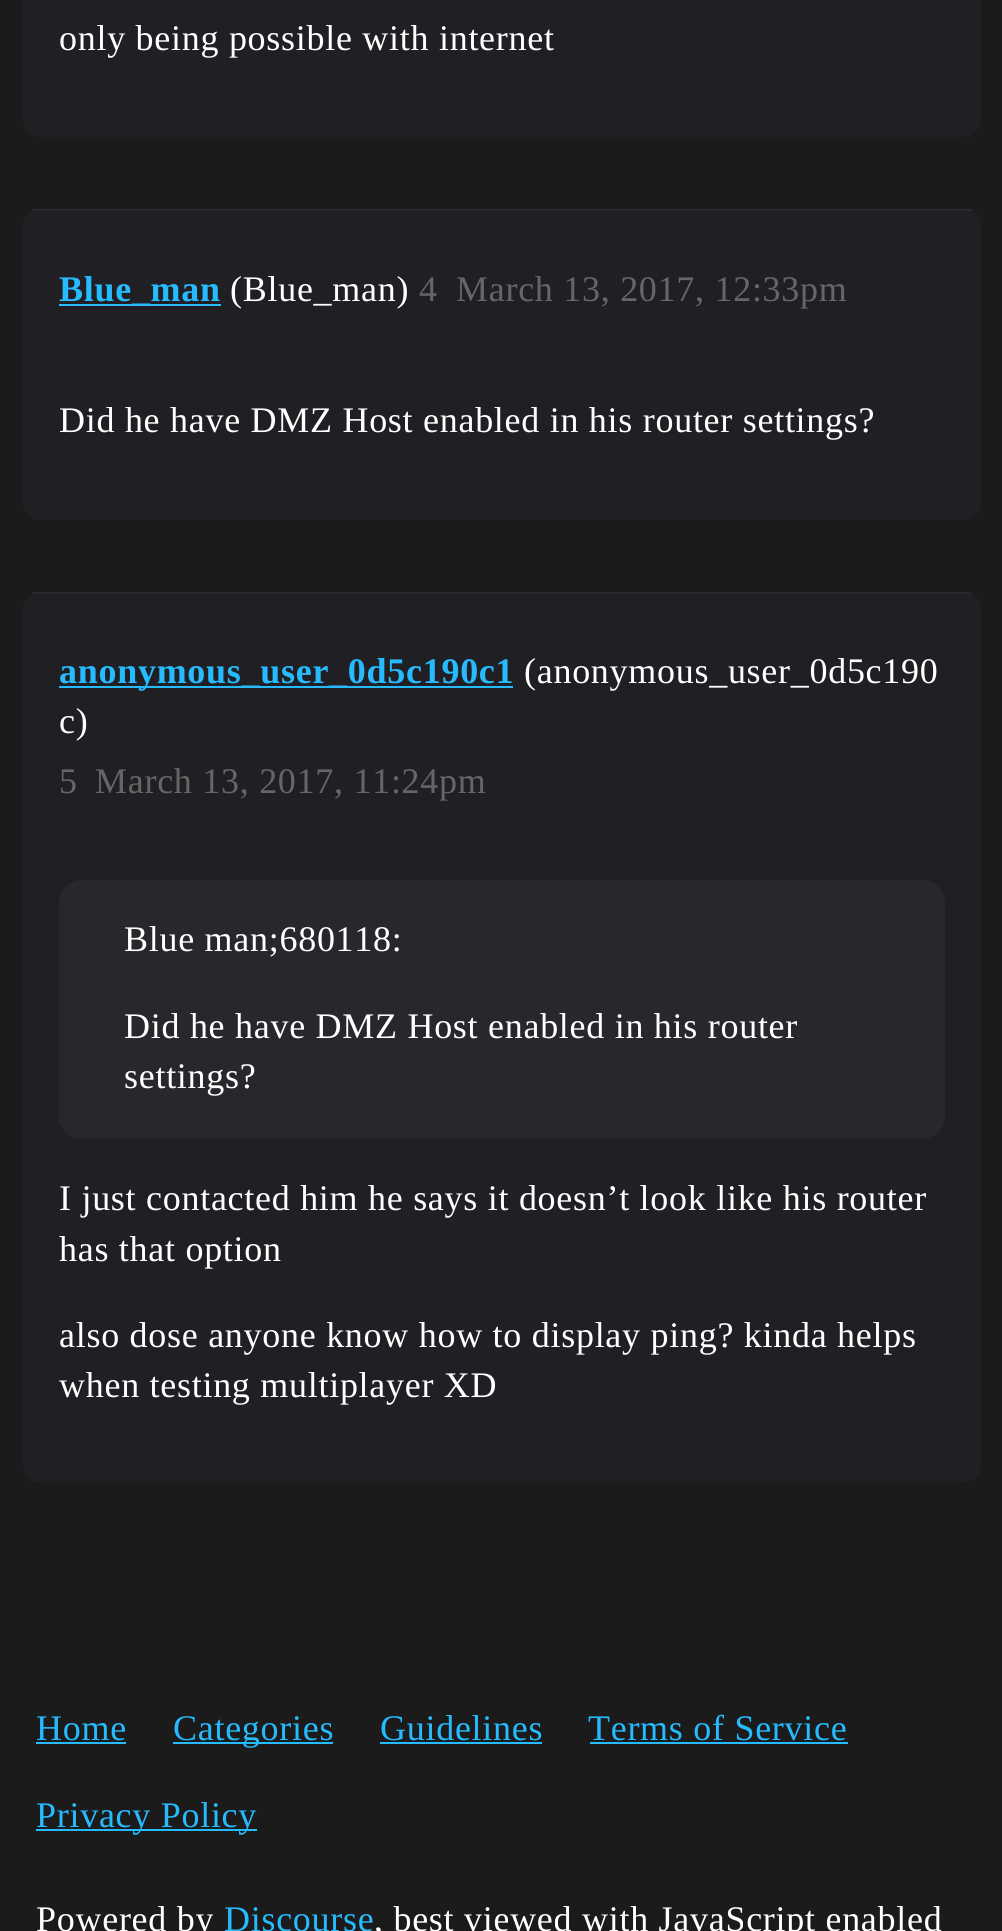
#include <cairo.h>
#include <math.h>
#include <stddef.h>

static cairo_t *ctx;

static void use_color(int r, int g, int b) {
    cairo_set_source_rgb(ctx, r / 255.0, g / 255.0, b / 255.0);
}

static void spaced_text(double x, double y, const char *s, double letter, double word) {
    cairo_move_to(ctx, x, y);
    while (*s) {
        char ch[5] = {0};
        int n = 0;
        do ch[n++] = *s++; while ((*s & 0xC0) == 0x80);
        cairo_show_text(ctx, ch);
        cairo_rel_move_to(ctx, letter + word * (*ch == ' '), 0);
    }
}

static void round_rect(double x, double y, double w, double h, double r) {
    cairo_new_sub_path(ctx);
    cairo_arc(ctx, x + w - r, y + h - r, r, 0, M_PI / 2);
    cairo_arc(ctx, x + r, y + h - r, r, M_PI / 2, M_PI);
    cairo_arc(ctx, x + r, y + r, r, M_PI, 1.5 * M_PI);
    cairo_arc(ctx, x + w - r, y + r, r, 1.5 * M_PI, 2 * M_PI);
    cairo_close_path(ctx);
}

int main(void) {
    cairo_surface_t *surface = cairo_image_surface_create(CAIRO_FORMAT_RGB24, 1002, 1931);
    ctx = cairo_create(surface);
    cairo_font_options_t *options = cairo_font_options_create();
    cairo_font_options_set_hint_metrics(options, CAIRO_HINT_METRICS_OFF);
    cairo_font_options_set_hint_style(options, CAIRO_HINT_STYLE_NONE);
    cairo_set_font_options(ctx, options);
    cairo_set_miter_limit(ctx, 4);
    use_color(27, 27, 27);
    cairo_paint(ctx);
    use_color(32, 32, 36);
    round_rect(23, -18, 958, 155, 18);
    cairo_fill(ctx);
    cairo_select_font_face(ctx, "Liberation Serif", CAIRO_FONT_SLANT_NORMAL, CAIRO_FONT_WEIGHT_NORMAL);
    cairo_set_font_size(ctx, 36);
    use_color(255, 255, 255);
    spaced_text(59, 50, "only being possible with internet", 0.72, 0);
    use_color(32, 32, 36);
    round_rect(23, 209, 958, 311, 18);
    cairo_fill(ctx);
    use_color(40, 40, 44);
    cairo_rectangle(ctx, 32, 209, 940, 2);
    cairo_fill(ctx);
    use_color(38, 187, 255);
    cairo_rectangle(ctx, 59, 304, 162, 2);
    cairo_fill(ctx);
    cairo_select_font_face(ctx, "Liberation Serif", CAIRO_FONT_SLANT_NORMAL, CAIRO_FONT_WEIGHT_BOLD);
    spaced_text(59, 301, "Blue_man", 0.72, 0);
    cairo_select_font_face(ctx, "Liberation Serif", CAIRO_FONT_SLANT_NORMAL, CAIRO_FONT_WEIGHT_NORMAL);
    use_color(255, 255, 255);
    spaced_text(230, 301, "(Blue_man)", 0.72, 0);
    use_color(102, 102, 102);
    spaced_text(419, 301, "4", 0.72, 0);
    spaced_text(456, 301, "March 13, 2017, 12:33pm", 0.72, 0);
    use_color(255, 255, 255);
    spaced_text(59, 432, "Did he have DMZ Host enabled in his router settings?", 0.72, 0);
    use_color(32, 32, 36);
    round_rect(23, 592, 958, 891, 18);
    cairo_fill(ctx);
    use_color(40, 40, 44);
    cairo_rectangle(ctx, 32, 592, 940, 2);
    cairo_fill(ctx);
    use_color(38, 187, 255);
    cairo_rectangle(ctx, 59, 686, 454, 2);
    cairo_fill(ctx);
    cairo_select_font_face(ctx, "Liberation Serif", CAIRO_FONT_SLANT_NORMAL, CAIRO_FONT_WEIGHT_BOLD);
    spaced_text(59, 683, "anonymous_user_0d5c190c1", 0.72, 0);
    cairo_select_font_face(ctx, "Liberation Serif", CAIRO_FONT_SLANT_NORMAL, CAIRO_FONT_WEIGHT_NORMAL);
    use_color(255, 255, 255);
    spaced_text(524, 683, "(anonymous_user_0d5c190", 0.72, 0);
    spaced_text(59, 733, "c)", 0.72, 0);
    use_color(102, 102, 102);
    spaced_text(59, 793, "5", 0.72, 0);
    spaced_text(95, 793, "March 13, 2017, 11:24pm", 0.72, 0);
    use_color(40, 40, 44);
    cairo_new_path(ctx);
    cairo_move_to(ctx, 82, 880);
    cairo_line_to(ctx, 922, 880);
    cairo_curve_to(ctx, 934.5, 880, 945, 890.5, 945, 903);
    cairo_line_to(ctx, 945, 965);
    cairo_line_to(ctx, 59, 965);
    cairo_line_to(ctx, 59, 903);
    cairo_curve_to(ctx, 59, 890.5, 69.5, 880, 82, 880);
    cairo_close_path(ctx);
    cairo_fill(ctx);
    use_color(255, 255, 255);
    spaced_text(124, 951, "Blue man;680118:", 0.72, 0);
    use_color(40, 40, 44);
    cairo_new_path(ctx);
    cairo_move_to(ctx, 59, 965);
    cairo_line_to(ctx, 945, 965);
    cairo_line_to(ctx, 945, 1116);
    cairo_curve_to(ctx, 945, 1128.5, 934.5, 1139, 922, 1139);
    cairo_line_to(ctx, 82, 1139);
    cairo_curve_to(ctx, 69.5, 1139, 59, 1128.5, 59, 1116);
    cairo_close_path(ctx);
    cairo_fill(ctx);
    use_color(255, 255, 255);
    spaced_text(124, 1038, "Did he have DMZ Host enabled in his router", 0.72, 0);
    spaced_text(124, 1088, "settings?", 0.72, 0);
    spaced_text(59, 1210, "I just contacted him he says it doesn’t look like his router", 0.72, 0);
    spaced_text(59, 1261, "has that option", 0.72, 0);
    spaced_text(59, 1347, "also dose anyone know how to display ping? kinda helps", 0.72, 0);
    spaced_text(59, 1397, "when testing multiplayer XD", 0.72, 0);
    use_color(38, 187, 255);
    spaced_text(36, 1740, "Home", 0.72, 0);
    cairo_rectangle(ctx, 36, 1742, 90, 2);
    cairo_fill(ctx);
    cairo_rectangle(ctx, 173, 1742, 160, 2);
    cairo_fill(ctx);
    spaced_text(173, 1740, "Categories", 0.72, 0);
    spaced_text(380, 1740, "Guidelines", 0.72, 0);
    cairo_rectangle(ctx, 380, 1742, 162, 2);
    cairo_fill(ctx);
    spaced_text(588, 1740, "Terms of Service", 0.72, 0);
    cairo_rectangle(ctx, 590, 1742, 258, 2);
    cairo_fill(ctx);
    cairo_rectangle(ctx, 36, 1829, 221, 2);
    cairo_fill(ctx);
    spaced_text(36, 1827, "Privacy Policy", 0.72, 0);
    use_color(255, 255, 255);
    spaced_text(36, 1931, "Powered by", 0.72, 0);
    use_color(38, 187, 255);
    spaced_text(224, 1931, "Discourse", 0.72, 0);
    use_color(255, 255, 255);
    spaced_text(374, 1931, ", best viewed with JavaScript enabled", 0.72, 0);
    cairo_surface_write_to_png(surface, "result.png");
    cairo_font_options_destroy(options);
    cairo_destroy(ctx);
    cairo_surface_destroy(surface);
    return 0;
}
